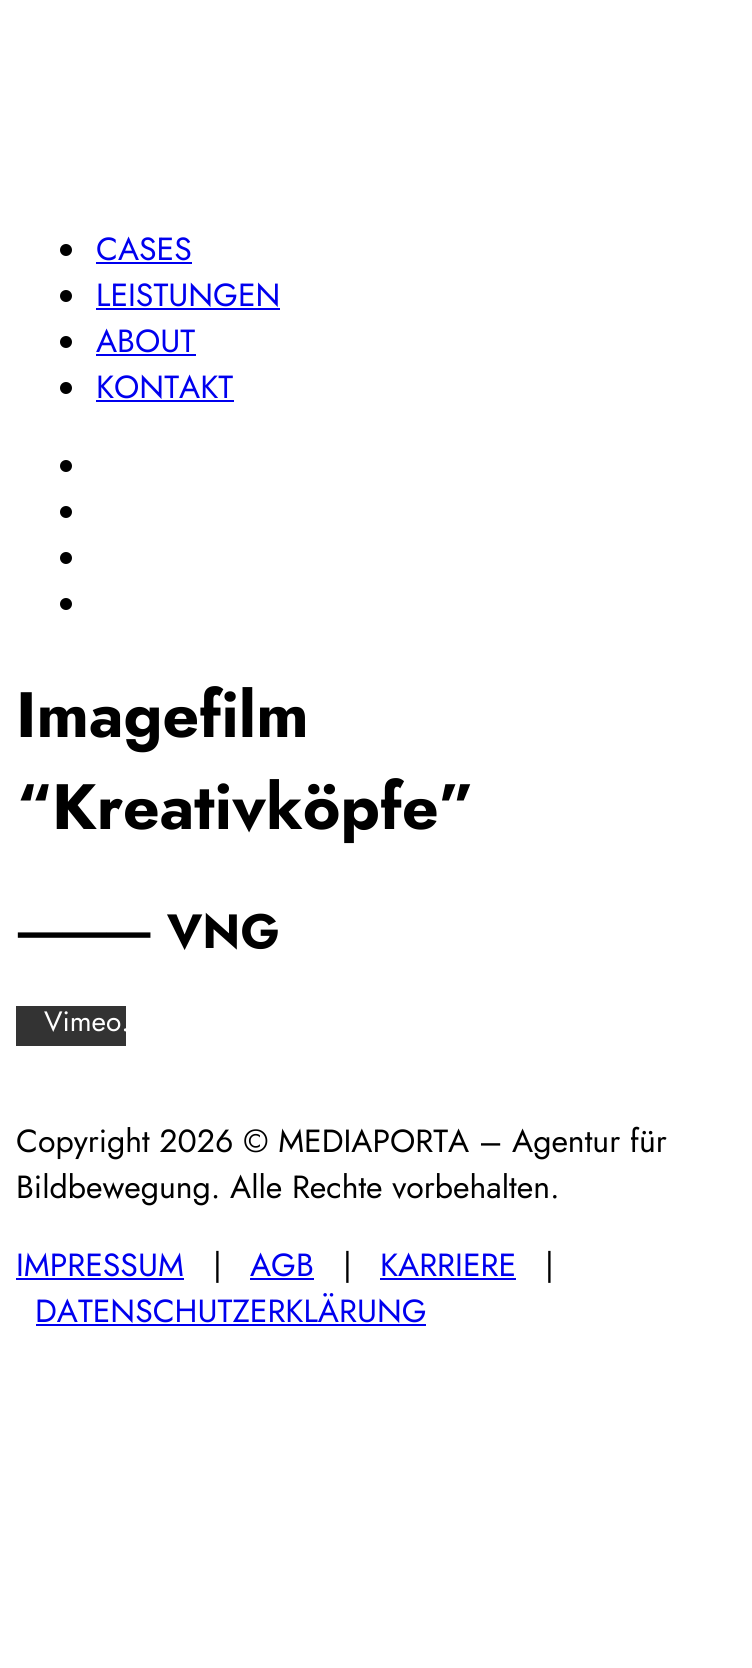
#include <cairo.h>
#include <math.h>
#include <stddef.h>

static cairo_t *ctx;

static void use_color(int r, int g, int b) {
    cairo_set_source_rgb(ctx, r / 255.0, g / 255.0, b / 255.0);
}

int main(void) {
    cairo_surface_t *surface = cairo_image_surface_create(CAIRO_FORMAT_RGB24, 752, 1668);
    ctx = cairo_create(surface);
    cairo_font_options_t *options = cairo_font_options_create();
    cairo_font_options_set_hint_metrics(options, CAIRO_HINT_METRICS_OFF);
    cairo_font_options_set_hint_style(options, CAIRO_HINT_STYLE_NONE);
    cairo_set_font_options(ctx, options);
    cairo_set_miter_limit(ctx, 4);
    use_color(255, 255, 255);
    cairo_paint(ctx);
    use_color(0, 0, 0);
    cairo_arc(ctx, 66, 250, 6, 0, 2 * M_PI);
    cairo_fill(ctx);
    cairo_select_font_face(ctx, "Jost", CAIRO_FONT_SLANT_NORMAL, CAIRO_FONT_WEIGHT_NORMAL);
    cairo_set_font_size(ctx, 32);
    use_color(0, 0, 238);
    cairo_move_to(ctx, 96, 260);
    cairo_show_text(ctx, "CASES");
    cairo_rectangle(ctx, 96, 262, 96, 2);
    cairo_fill(ctx);
    use_color(0, 0, 0);
    cairo_arc(ctx, 66, 296, 6, 0, 2 * M_PI);
    cairo_fill(ctx);
    use_color(0, 0, 238);
    cairo_move_to(ctx, 96, 306);
    cairo_show_text(ctx, "LEISTUNGEN");
    cairo_rectangle(ctx, 96, 308, 184, 2);
    cairo_fill(ctx);
    use_color(0, 0, 0);
    cairo_arc(ctx, 66, 342, 6, 0, 2 * M_PI);
    cairo_fill(ctx);
    use_color(0, 0, 238);
    cairo_move_to(ctx, 96, 352);
    cairo_show_text(ctx, "ABOUT");
    cairo_rectangle(ctx, 96, 354, 100, 2);
    cairo_fill(ctx);
    use_color(0, 0, 0);
    cairo_arc(ctx, 66, 388, 6, 0, 2 * M_PI);
    cairo_fill(ctx);
    use_color(0, 0, 238);
    cairo_move_to(ctx, 96, 398);
    cairo_show_text(ctx, "KONTAKT");
    cairo_rectangle(ctx, 96, 400, 138, 2);
    cairo_fill(ctx);
    use_color(0, 0, 0);
    cairo_arc(ctx, 66, 466, 6, 0, 2 * M_PI);
    cairo_fill(ctx);
    cairo_arc(ctx, 66, 512, 6, 0, 2 * M_PI);
    cairo_fill(ctx);
    cairo_arc(ctx, 66, 558, 6, 0, 2 * M_PI);
    cairo_fill(ctx);
    cairo_arc(ctx, 66, 604, 6, 0, 2 * M_PI);
    cairo_fill(ctx);
    cairo_select_font_face(ctx, "Jost", CAIRO_FONT_SLANT_NORMAL, CAIRO_FONT_WEIGHT_BOLD);
    cairo_set_font_size(ctx, 64);
    cairo_move_to(ctx, 16, 737);
    cairo_show_text(ctx, "Imagefilm");
    cairo_move_to(ctx, 16, 829);
    cairo_show_text(ctx, "“Kreativköpfe”");
    cairo_select_font_face(ctx, "Noto Sans", CAIRO_FONT_SLANT_NORMAL, CAIRO_FONT_WEIGHT_BOLD);
    cairo_set_font_size(ctx, 48);
    cairo_move_to(ctx, 16, 948);
    cairo_show_text(ctx, "⸻");
    cairo_select_font_face(ctx, "Jost", CAIRO_FONT_SLANT_NORMAL, CAIRO_FONT_WEIGHT_BOLD);
    cairo_move_to(ctx, 167, 948);
    cairo_show_text(ctx, "VNG");
    use_color(51, 51, 51);
    cairo_rectangle(ctx, 16, 1006, 110, 40);
    cairo_fill(ctx);
    cairo_save(ctx);
    cairo_rectangle(ctx, 16, 1006, 110, 40);
    cairo_clip(ctx);
    cairo_select_font_face(ctx, "Jost", CAIRO_FONT_SLANT_NORMAL, CAIRO_FONT_WEIGHT_NORMAL);
    cairo_set_font_size(ctx, 28);
    use_color(255, 255, 255);
    cairo_move_to(ctx, 44, 1031);
    cairo_show_text(ctx, "Vimeo.");
    cairo_restore(ctx);
    cairo_select_font_face(ctx, "Jost", CAIRO_FONT_SLANT_NORMAL, CAIRO_FONT_WEIGHT_NORMAL);
    cairo_set_font_size(ctx, 32);
    use_color(0, 0, 0);
    cairo_move_to(ctx, 16, 1152);
    cairo_show_text(ctx, "Copyright 2026 © MEDIAPORTA – Agentur für");
    cairo_move_to(ctx, 16, 1198);
    cairo_show_text(ctx, "Bildbewegung. Alle Rechte vorbehalten.");
    use_color(0, 0, 238);
    cairo_move_to(ctx, 16, 1276);
    cairo_show_text(ctx, "IMPRESSUM");
    cairo_rectangle(ctx, 16, 1278, 168, 2);
    cairo_fill(ctx);
    use_color(0, 0, 0);
    cairo_move_to(ctx, 213, 1276);
    cairo_show_text(ctx, "|");
    use_color(0, 0, 238);
    cairo_move_to(ctx, 250, 1276);
    cairo_show_text(ctx, "AGB");
    cairo_rectangle(ctx, 250, 1278, 64, 2);
    cairo_fill(ctx);
    use_color(0, 0, 0);
    cairo_move_to(ctx, 343, 1276);
    cairo_show_text(ctx, "|");
    use_color(0, 0, 238);
    cairo_move_to(ctx, 380, 1276);
    cairo_show_text(ctx, "KARRIERE");
    cairo_rectangle(ctx, 380, 1278, 136, 2);
    cairo_fill(ctx);
    use_color(0, 0, 0);
    cairo_move_to(ctx, 545, 1276);
    cairo_show_text(ctx, "|");
    use_color(0, 0, 238);
    cairo_move_to(ctx, 35, 1322);
    cairo_show_text(ctx, "DATENSCHUTZERKLÄRUNG");
    cairo_rectangle(ctx, 36, 1324, 390, 2);
    cairo_fill(ctx);
    cairo_surface_write_to_png(surface, "result.png");
    cairo_font_options_destroy(options);
    cairo_destroy(ctx);
    cairo_surface_destroy(surface);
    return 0;
}
